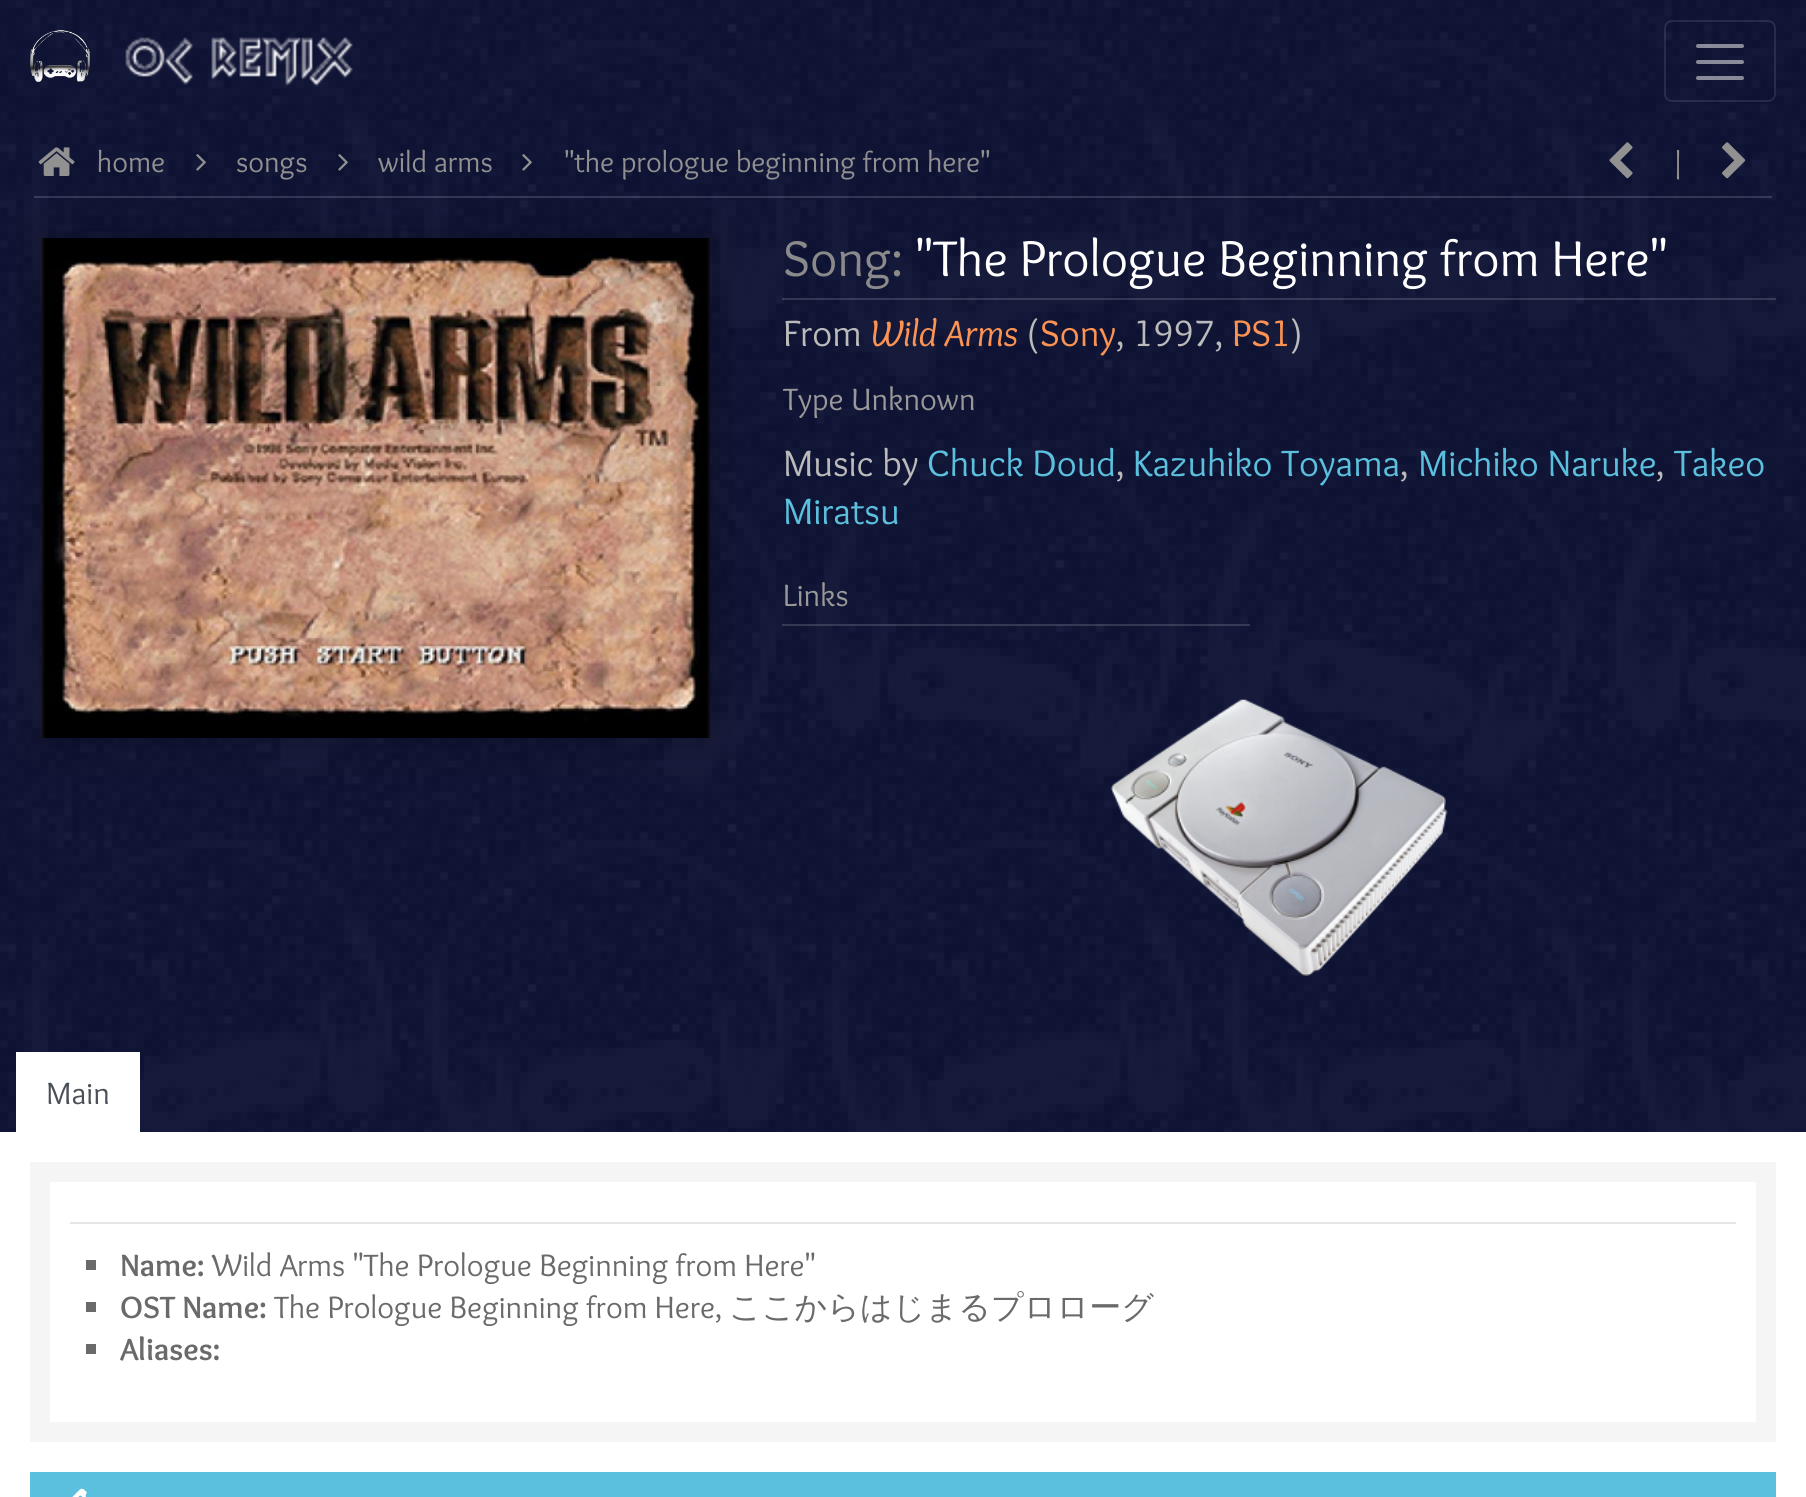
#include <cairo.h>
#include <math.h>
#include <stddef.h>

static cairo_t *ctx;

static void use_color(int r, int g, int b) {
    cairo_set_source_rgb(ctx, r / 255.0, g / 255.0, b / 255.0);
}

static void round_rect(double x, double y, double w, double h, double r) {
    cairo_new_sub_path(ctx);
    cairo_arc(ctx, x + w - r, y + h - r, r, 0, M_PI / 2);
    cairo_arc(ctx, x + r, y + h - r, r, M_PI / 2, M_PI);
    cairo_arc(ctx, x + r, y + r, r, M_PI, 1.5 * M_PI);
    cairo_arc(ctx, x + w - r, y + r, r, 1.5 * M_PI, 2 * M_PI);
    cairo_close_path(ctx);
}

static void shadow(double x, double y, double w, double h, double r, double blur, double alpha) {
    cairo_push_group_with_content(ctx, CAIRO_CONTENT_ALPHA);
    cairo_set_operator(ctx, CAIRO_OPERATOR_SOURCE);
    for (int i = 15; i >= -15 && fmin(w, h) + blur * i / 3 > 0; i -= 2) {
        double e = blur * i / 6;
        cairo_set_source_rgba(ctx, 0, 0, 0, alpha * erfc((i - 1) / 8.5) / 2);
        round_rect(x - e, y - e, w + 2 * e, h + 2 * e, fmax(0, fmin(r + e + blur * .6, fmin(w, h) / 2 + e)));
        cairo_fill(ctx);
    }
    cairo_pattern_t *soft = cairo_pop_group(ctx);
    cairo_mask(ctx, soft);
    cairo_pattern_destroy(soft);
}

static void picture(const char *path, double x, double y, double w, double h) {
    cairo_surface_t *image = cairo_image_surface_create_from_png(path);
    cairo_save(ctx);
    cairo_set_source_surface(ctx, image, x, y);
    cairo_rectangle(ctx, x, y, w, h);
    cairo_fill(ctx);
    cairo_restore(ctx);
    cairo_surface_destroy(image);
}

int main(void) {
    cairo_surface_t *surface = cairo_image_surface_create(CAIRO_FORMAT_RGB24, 1806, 1497);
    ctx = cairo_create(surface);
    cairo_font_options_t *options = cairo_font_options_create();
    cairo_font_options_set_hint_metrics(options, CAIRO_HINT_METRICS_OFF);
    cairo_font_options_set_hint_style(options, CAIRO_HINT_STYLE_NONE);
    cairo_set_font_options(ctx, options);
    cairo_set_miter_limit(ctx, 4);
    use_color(255, 255, 255);
    cairo_paint(ctx);
    picture("img1.png", 0, 0, 1806, 1132);
    cairo_set_source_rgba(ctx, 0.086, 0.106, 0.31, 0.63);
    cairo_rectangle(ctx, 0, 0, 1806, 118);
    cairo_fill(ctx);
    picture("img2.png", 30, 30, 60, 52);
    picture("img3.png", 125, 37, 228, 50);
    round_rect(1665, 21, 110, 80, 7);
    cairo_set_source_rgba(ctx, 1, 1, 1, 0.1);
    cairo_stroke(ctx);
    cairo_new_path(ctx);
    cairo_move_to(ctx, 1698, 46);
    cairo_line_to(ctx, 1742, 46);
    cairo_move_to(ctx, 1698, 62);
    cairo_line_to(ctx, 1742, 62);
    cairo_move_to(ctx, 1698, 78);
    cairo_line_to(ctx, 1742, 78);
    cairo_set_source_rgba(ctx, 1, 1, 1, 0.5);
    cairo_set_line_width(ctx, 4);
    cairo_set_line_cap(ctx, CAIRO_LINE_CAP_ROUND);
    cairo_stroke(ctx);
    cairo_set_source_rgba(ctx, 0.086, 0.106, 0.31, 0.63);
    cairo_rectangle(ctx, 0, 118, 1806, 1014);
    cairo_fill(ctx);
    cairo_set_source_rgba(ctx, 1, 1, 1, 0.15);
    cairo_rectangle(ctx, 34, 196, 1738, 2);
    cairo_fill(ctx);
    picture("img4.png", 38, 147, 37, 29);
    cairo_select_font_face(ctx, "Overlock", CAIRO_FONT_SLANT_NORMAL, CAIRO_FONT_WEIGHT_NORMAL);
    cairo_set_font_size(ctx, 30);
    use_color(145, 145, 145);
    cairo_move_to(ctx, 97, 172);
    cairo_show_text(ctx, "home");
    picture("img5.png", 196, 154, 10, 17);
    cairo_move_to(ctx, 236, 172);
    cairo_show_text(ctx, "songs");
    picture("img6.png", 338, 154, 10, 17);
    cairo_move_to(ctx, 378, 172);
    cairo_show_text(ctx, "wild arms");
    picture("img7.png", 522, 154, 10, 17);
    cairo_move_to(ctx, 564, 172);
    cairo_show_text(ctx, "\"the prologue beginning from here\"");
    picture("img8.png", 1609, 142, 24, 37);
    cairo_move_to(ctx, 1670, 172);
    cairo_show_text(ctx, "|");
    picture("img9.png", 1722, 142, 24, 37);
    use_color(0, 0, 0);
    shadow(42, 238, 668, 500, 0, 20, 0.25);
    picture("img10.png", 42, 238, 668, 500);
    cairo_set_source_rgba(ctx, 1, 1, 1, 0.15);
    cairo_rectangle(ctx, 782, 298, 994, 2);
    cairo_fill(ctx);
    cairo_set_font_size(ctx, 52);
    use_color(138, 138, 138);
    cairo_move_to(ctx, 783, 276);
    cairo_show_text(ctx, "Song:");
    use_color(255, 255, 255);
    cairo_move_to(ctx, 915, 276);
    cairo_show_text(ctx, "\"The Prologue Beginning from Here\"");
    cairo_set_font_size(ctx, 38);
    use_color(187, 187, 187);
    cairo_move_to(ctx, 783, 346);
    cairo_show_text(ctx, "From");
    cairo_select_font_face(ctx, "Overlock", CAIRO_FONT_SLANT_ITALIC, CAIRO_FONT_WEIGHT_NORMAL);
    use_color(253, 147, 83);
    cairo_move_to(ctx, 870, 346);
    cairo_show_text(ctx, "Wild Arms");
    cairo_select_font_face(ctx, "Overlock", CAIRO_FONT_SLANT_NORMAL, CAIRO_FONT_WEIGHT_NORMAL);
    use_color(187, 187, 187);
    cairo_move_to(ctx, 1026, 346);
    cairo_show_text(ctx, "(");
    use_color(253, 147, 83);
    cairo_move_to(ctx, 1040, 346);
    cairo_show_text(ctx, "Sony");
    use_color(187, 187, 187);
    cairo_move_to(ctx, 1116, 346);
    cairo_show_text(ctx, ", 1997,");
    use_color(253, 147, 83);
    cairo_move_to(ctx, 1232, 346);
    cairo_show_text(ctx, "PS1");
    use_color(187, 187, 187);
    cairo_move_to(ctx, 1291, 346);
    cairo_show_text(ctx, ")");
    cairo_set_font_size(ctx, 32);
    use_color(153, 153, 153);
    cairo_move_to(ctx, 783, 410);
    cairo_show_text(ctx, "Type Unknown");
    cairo_set_font_size(ctx, 38);
    use_color(187, 187, 187);
    cairo_move_to(ctx, 783, 476);
    cairo_show_text(ctx, "Music by");
    use_color(91, 192, 222);
    cairo_move_to(ctx, 927, 476);
    cairo_show_text(ctx, "Chuck Doud");
    use_color(187, 187, 187);
    cairo_move_to(ctx, 1116, 476);
    cairo_show_text(ctx, ",");
    use_color(91, 192, 222);
    cairo_move_to(ctx, 1133, 476);
    cairo_show_text(ctx, "Kazuhiko Toyama");
    use_color(187, 187, 187);
    cairo_move_to(ctx, 1400, 476);
    cairo_show_text(ctx, ",");
    use_color(91, 192, 222);
    cairo_move_to(ctx, 1418, 476);
    cairo_show_text(ctx, "Michiko Naruke");
    use_color(187, 187, 187);
    cairo_move_to(ctx, 1656, 476);
    cairo_show_text(ctx, ",");
    use_color(91, 192, 222);
    cairo_move_to(ctx, 1674, 476);
    cairo_show_text(ctx, "Takeo");
    cairo_move_to(ctx, 783, 524);
    cairo_show_text(ctx, "Miratsu");
    cairo_set_source_rgba(ctx, 1, 1, 1, 0.15);
    cairo_rectangle(ctx, 782, 624, 468, 2);
    cairo_fill(ctx);
    cairo_set_font_size(ctx, 32);
    use_color(153, 153, 153);
    cairo_move_to(ctx, 783, 606);
    cairo_show_text(ctx, "Links");
    picture("img11.png", 1110, 699, 338, 277);
    use_color(255, 255, 255);
    cairo_rectangle(ctx, 16, 1052, 124, 80);
    cairo_fill(ctx);
    use_color(73, 80, 87);
    cairo_move_to(ctx, 46, 1104);
    cairo_show_text(ctx, "Main");
    use_color(245, 245, 245);
    cairo_rectangle(ctx, 30, 1162, 1746, 280);
    cairo_fill(ctx);
    use_color(255, 255, 255);
    cairo_rectangle(ctx, 50, 1182, 1706, 240);
    cairo_fill(ctx);
    use_color(230, 230, 230);
    cairo_rectangle(ctx, 70, 1222, 1666, 2);
    cairo_fill(ctx);
    use_color(106, 106, 106);
    cairo_rectangle(ctx, 86, 1260, 10, 10);
    cairo_fill(ctx);
    cairo_select_font_face(ctx, "Overlock", CAIRO_FONT_SLANT_NORMAL, CAIRO_FONT_WEIGHT_BOLD);
    cairo_move_to(ctx, 120, 1276);
    cairo_show_text(ctx, "Name:");
    cairo_select_font_face(ctx, "Overlock", CAIRO_FONT_SLANT_NORMAL, CAIRO_FONT_WEIGHT_NORMAL);
    cairo_move_to(ctx, 212, 1276);
    cairo_show_text(ctx, "Wild Arms \"The Prologue Beginning from Here\"");
    cairo_rectangle(ctx, 86, 1302, 10, 10);
    cairo_fill(ctx);
    cairo_select_font_face(ctx, "Overlock", CAIRO_FONT_SLANT_NORMAL, CAIRO_FONT_WEIGHT_BOLD);
    cairo_move_to(ctx, 120, 1318);
    cairo_show_text(ctx, "OST Name:");
    cairo_select_font_face(ctx, "Overlock", CAIRO_FONT_SLANT_NORMAL, CAIRO_FONT_WEIGHT_NORMAL);
    cairo_move_to(ctx, 274, 1318);
    cairo_show_text(ctx, "The Prologue Beginning from Here,");
    cairo_select_font_face(ctx, "WenQuanYi Zen Hei Medium", CAIRO_FONT_SLANT_NORMAL, CAIRO_FONT_WEIGHT_NORMAL);
    cairo_move_to(ctx, 729, 1318);
    cairo_show_text(ctx, "ここからはじまるプロローグ");
    cairo_rectangle(ctx, 86, 1344, 10, 10);
    cairo_fill(ctx);
    cairo_select_font_face(ctx, "Overlock", CAIRO_FONT_SLANT_NORMAL, CAIRO_FONT_WEIGHT_BOLD);
    cairo_move_to(ctx, 120, 1360);
    cairo_show_text(ctx, "Aliases:");
    use_color(91, 192, 222);
    cairo_rectangle(ctx, 30, 1472, 1746, 25);
    cairo_fill(ctx);
    picture("img12.png", 72, 1488, 15, 9);
    cairo_surface_write_to_png(surface, "result.png");
    cairo_font_options_destroy(options);
    cairo_destroy(ctx);
    cairo_surface_destroy(surface);
    return 0;
}
